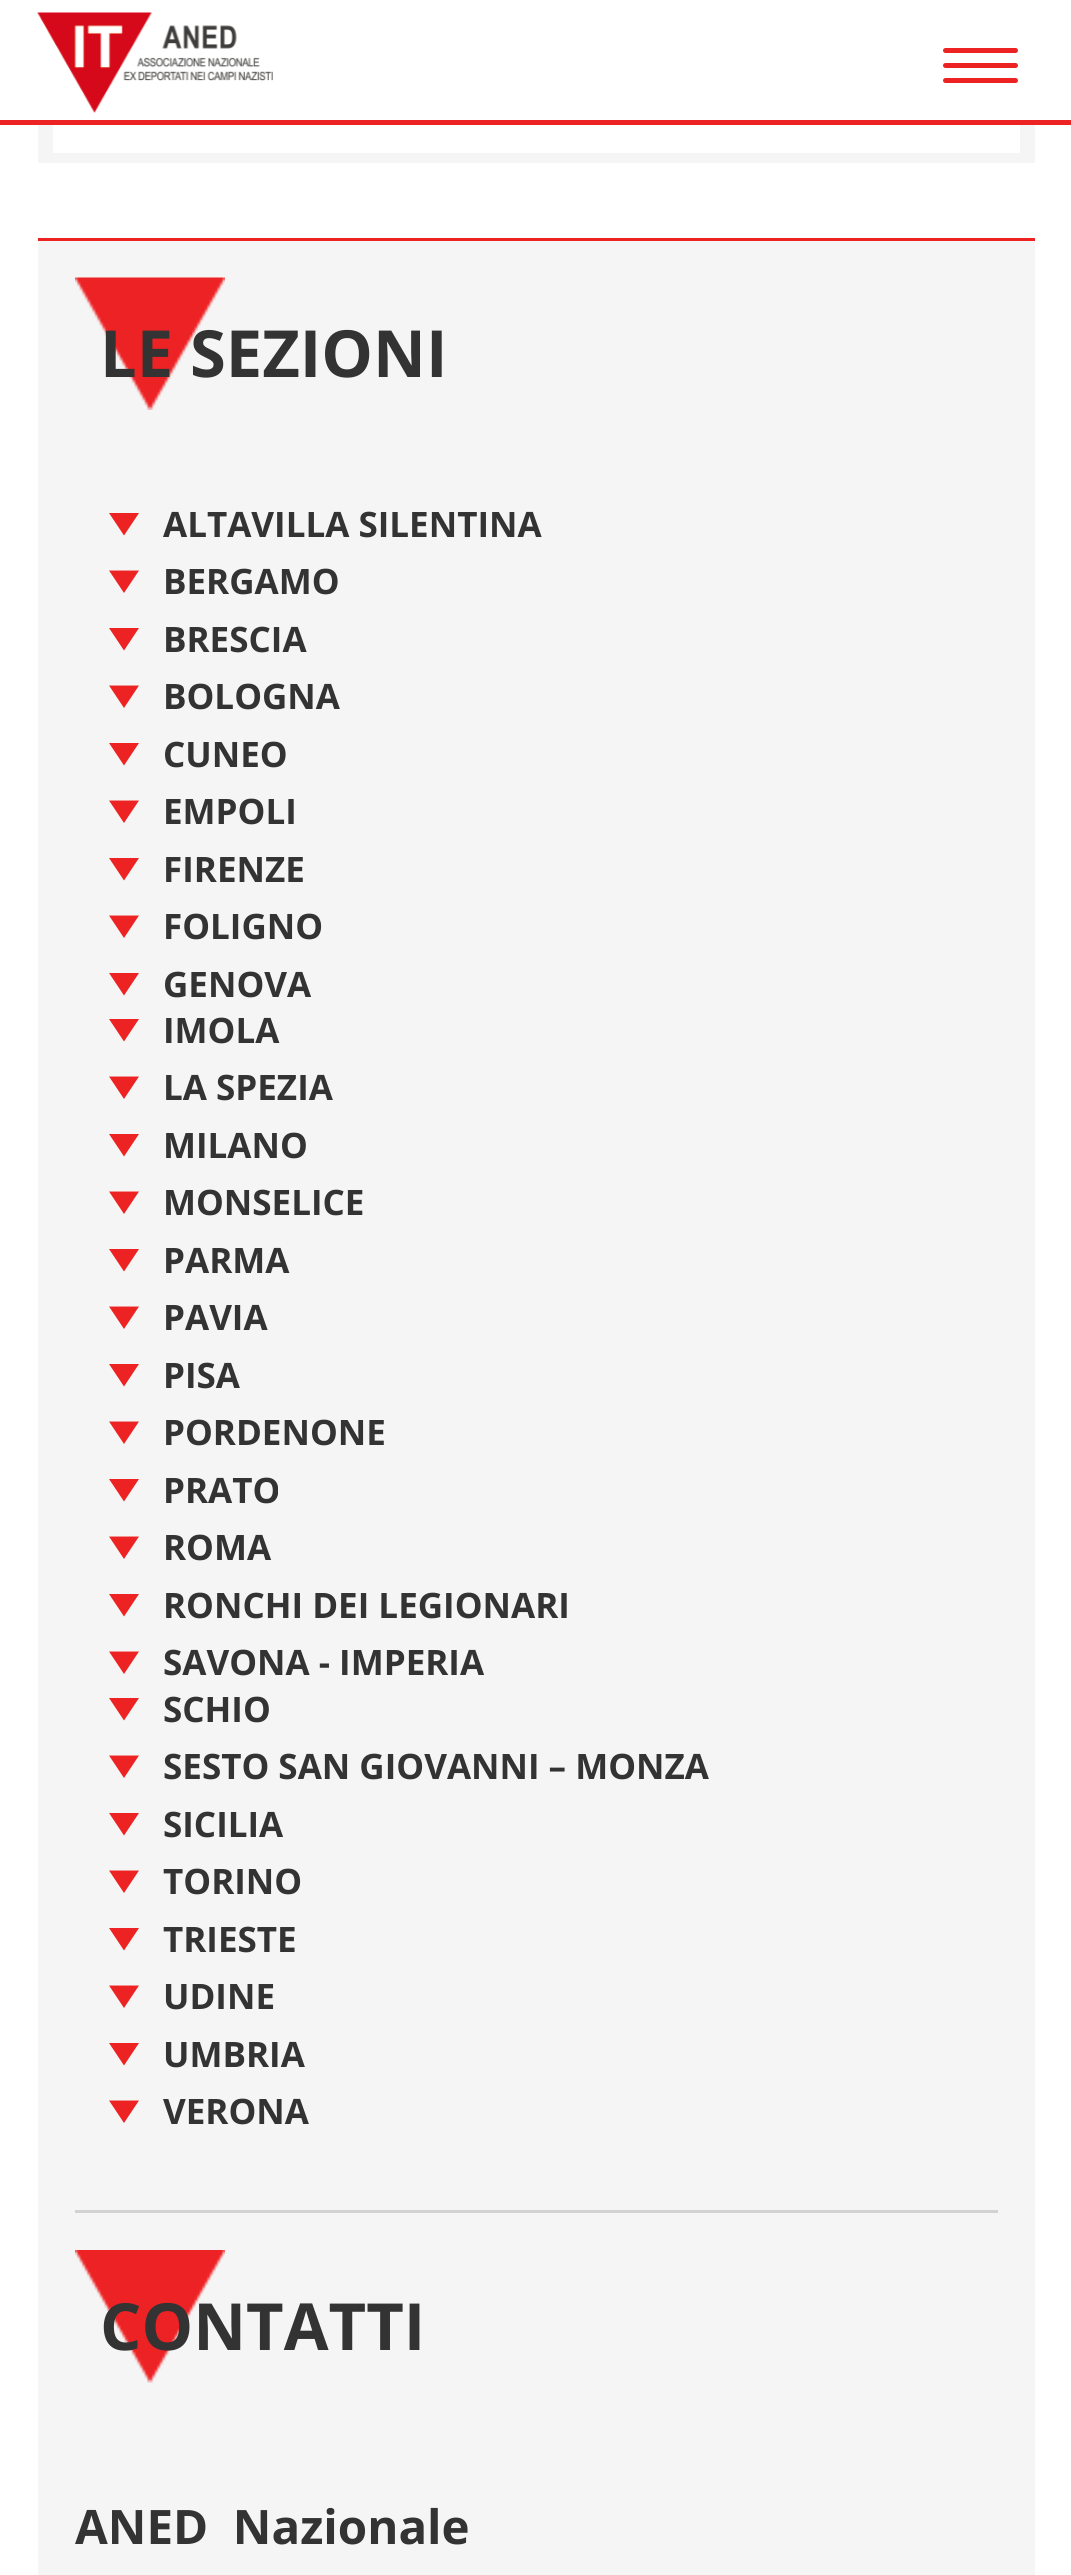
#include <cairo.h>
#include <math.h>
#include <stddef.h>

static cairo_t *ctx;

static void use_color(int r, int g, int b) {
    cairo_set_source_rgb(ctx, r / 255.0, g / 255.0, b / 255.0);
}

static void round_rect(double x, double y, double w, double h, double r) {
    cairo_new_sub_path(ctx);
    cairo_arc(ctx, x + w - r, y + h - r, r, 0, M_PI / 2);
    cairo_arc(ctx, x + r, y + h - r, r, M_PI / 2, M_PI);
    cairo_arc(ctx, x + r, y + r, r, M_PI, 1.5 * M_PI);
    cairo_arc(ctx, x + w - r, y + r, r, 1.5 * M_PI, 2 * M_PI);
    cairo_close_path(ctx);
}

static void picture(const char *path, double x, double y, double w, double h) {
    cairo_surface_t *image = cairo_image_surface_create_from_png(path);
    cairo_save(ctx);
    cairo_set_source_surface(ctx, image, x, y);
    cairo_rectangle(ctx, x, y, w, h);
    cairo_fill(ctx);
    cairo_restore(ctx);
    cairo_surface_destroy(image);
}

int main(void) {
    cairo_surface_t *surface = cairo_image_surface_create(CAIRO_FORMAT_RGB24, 1071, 2575);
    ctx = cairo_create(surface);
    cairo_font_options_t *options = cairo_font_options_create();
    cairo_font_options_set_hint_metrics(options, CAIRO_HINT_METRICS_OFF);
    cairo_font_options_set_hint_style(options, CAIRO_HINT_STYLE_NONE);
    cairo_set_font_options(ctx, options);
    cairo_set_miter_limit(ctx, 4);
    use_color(255, 255, 255);
    cairo_paint(ctx);
    use_color(237, 35, 35);
    cairo_rectangle(ctx, 0, 120, 1071, 5);
    cairo_fill(ctx);
    picture("img1.png", 37, 12, 236, 101);
    round_rect(943, 48, 75, 5, 2.5);
    cairo_fill(ctx);
    round_rect(943, 63, 75, 5, 2.5);
    cairo_fill(ctx);
    round_rect(943, 78, 75, 5, 2.5);
    cairo_fill(ctx);
    use_color(245, 245, 245);
    cairo_rectangle(ctx, 1020, 125, 15, 28);
    cairo_fill(ctx);
    cairo_rectangle(ctx, 53, 153, 982, 10);
    cairo_fill(ctx);
    cairo_rectangle(ctx, 38, 125, 15, 38);
    cairo_fill(ctx);
    cairo_rectangle(ctx, 38, 241, 997, 2334);
    cairo_fill(ctx);
    use_color(237, 35, 35);
    cairo_rectangle(ctx, 38, 238, 997, 3);
    cairo_fill(ctx);
    picture("img2.png", 75, 277, 150, 133);
    cairo_select_font_face(ctx, "Open Sans", CAIRO_FONT_SLANT_NORMAL, CAIRO_FONT_WEIGHT_BOLD);
    cairo_set_font_size(ctx, 65);
    use_color(51, 51, 51);
    cairo_move_to(ctx, 100, 377);
    cairo_show_text(ctx, "LE SEZIONI");
    use_color(237, 35, 35);
    cairo_new_path(ctx);
    cairo_move_to(ctx, 109, 513);
    cairo_line_to(ctx, 139, 513);
    cairo_line_to(ctx, 124, 535.5);
    cairo_close_path(ctx);
    cairo_fill(ctx);
    cairo_set_font_size(ctx, 35);
    use_color(51, 51, 51);
    cairo_move_to(ctx, 163, 537);
    cairo_show_text(ctx, "ALTAVILLA SILENTINA");
    use_color(237, 35, 35);
    cairo_new_path(ctx);
    cairo_move_to(ctx, 109, 570.5);
    cairo_line_to(ctx, 139, 570.5);
    cairo_line_to(ctx, 124, 593);
    cairo_close_path(ctx);
    cairo_fill(ctx);
    use_color(51, 51, 51);
    cairo_move_to(ctx, 163, 594);
    cairo_show_text(ctx, "BERGAMO");
    use_color(237, 35, 35);
    cairo_new_path(ctx);
    cairo_move_to(ctx, 109, 628);
    cairo_line_to(ctx, 139, 628);
    cairo_line_to(ctx, 124, 650.5);
    cairo_close_path(ctx);
    cairo_fill(ctx);
    use_color(51, 51, 51);
    cairo_move_to(ctx, 163, 652);
    cairo_show_text(ctx, "BRESCIA");
    use_color(237, 35, 35);
    cairo_new_path(ctx);
    cairo_move_to(ctx, 109, 685.5);
    cairo_line_to(ctx, 139, 685.5);
    cairo_line_to(ctx, 124, 708);
    cairo_close_path(ctx);
    cairo_fill(ctx);
    use_color(51, 51, 51);
    cairo_move_to(ctx, 163, 709);
    cairo_show_text(ctx, "BOLOGNA");
    use_color(237, 35, 35);
    cairo_new_path(ctx);
    cairo_move_to(ctx, 109, 743);
    cairo_line_to(ctx, 139, 743);
    cairo_line_to(ctx, 124, 765.5);
    cairo_close_path(ctx);
    cairo_fill(ctx);
    use_color(51, 51, 51);
    cairo_move_to(ctx, 163, 767);
    cairo_show_text(ctx, "CUNEO");
    use_color(237, 35, 35);
    cairo_new_path(ctx);
    cairo_move_to(ctx, 109, 800.5);
    cairo_line_to(ctx, 139, 800.5);
    cairo_line_to(ctx, 124, 823);
    cairo_close_path(ctx);
    cairo_fill(ctx);
    use_color(51, 51, 51);
    cairo_move_to(ctx, 163, 824);
    cairo_show_text(ctx, "EMPOLI");
    use_color(237, 35, 35);
    cairo_new_path(ctx);
    cairo_move_to(ctx, 109, 858);
    cairo_line_to(ctx, 139, 858);
    cairo_line_to(ctx, 124, 880.5);
    cairo_close_path(ctx);
    cairo_fill(ctx);
    use_color(51, 51, 51);
    cairo_move_to(ctx, 163, 882);
    cairo_show_text(ctx, "FIRENZE");
    use_color(237, 35, 35);
    cairo_new_path(ctx);
    cairo_move_to(ctx, 109, 915.5);
    cairo_line_to(ctx, 139, 915.5);
    cairo_line_to(ctx, 124, 938);
    cairo_close_path(ctx);
    cairo_fill(ctx);
    use_color(51, 51, 51);
    cairo_move_to(ctx, 163, 939);
    cairo_show_text(ctx, "FOLIGNO");
    use_color(237, 35, 35);
    cairo_new_path(ctx);
    cairo_move_to(ctx, 109, 973);
    cairo_line_to(ctx, 139, 973);
    cairo_line_to(ctx, 124, 995.5);
    cairo_close_path(ctx);
    cairo_fill(ctx);
    use_color(51, 51, 51);
    cairo_move_to(ctx, 163, 997);
    cairo_show_text(ctx, "GENOVA");
    use_color(237, 35, 35);
    cairo_new_path(ctx);
    cairo_move_to(ctx, 109, 1019);
    cairo_line_to(ctx, 139, 1019);
    cairo_line_to(ctx, 124, 1041.5);
    cairo_close_path(ctx);
    cairo_fill(ctx);
    use_color(51, 51, 51);
    cairo_move_to(ctx, 163, 1043);
    cairo_show_text(ctx, "IMOLA");
    use_color(237, 35, 35);
    cairo_new_path(ctx);
    cairo_move_to(ctx, 109, 1076.5);
    cairo_line_to(ctx, 139, 1076.5);
    cairo_line_to(ctx, 124, 1099);
    cairo_close_path(ctx);
    cairo_fill(ctx);
    use_color(51, 51, 51);
    cairo_move_to(ctx, 163, 1100);
    cairo_show_text(ctx, "LA SPEZIA");
    use_color(237, 35, 35);
    cairo_new_path(ctx);
    cairo_move_to(ctx, 109, 1134);
    cairo_line_to(ctx, 139, 1134);
    cairo_line_to(ctx, 124, 1156.5);
    cairo_close_path(ctx);
    cairo_fill(ctx);
    use_color(51, 51, 51);
    cairo_move_to(ctx, 163, 1158);
    cairo_show_text(ctx, "MILANO");
    use_color(237, 35, 35);
    cairo_new_path(ctx);
    cairo_move_to(ctx, 109, 1191.5);
    cairo_line_to(ctx, 139, 1191.5);
    cairo_line_to(ctx, 124, 1214);
    cairo_close_path(ctx);
    cairo_fill(ctx);
    use_color(51, 51, 51);
    cairo_move_to(ctx, 163, 1215);
    cairo_show_text(ctx, "MONSELICE");
    use_color(237, 35, 35);
    cairo_new_path(ctx);
    cairo_move_to(ctx, 109, 1249);
    cairo_line_to(ctx, 139, 1249);
    cairo_line_to(ctx, 124, 1271.5);
    cairo_close_path(ctx);
    cairo_fill(ctx);
    use_color(51, 51, 51);
    cairo_move_to(ctx, 163, 1273);
    cairo_show_text(ctx, "PARMA");
    use_color(237, 35, 35);
    cairo_new_path(ctx);
    cairo_move_to(ctx, 109, 1306.5);
    cairo_line_to(ctx, 139, 1306.5);
    cairo_line_to(ctx, 124, 1329);
    cairo_close_path(ctx);
    cairo_fill(ctx);
    use_color(51, 51, 51);
    cairo_move_to(ctx, 163, 1330);
    cairo_show_text(ctx, "PAVIA");
    use_color(237, 35, 35);
    cairo_new_path(ctx);
    cairo_move_to(ctx, 109, 1364);
    cairo_line_to(ctx, 139, 1364);
    cairo_line_to(ctx, 124, 1386.5);
    cairo_close_path(ctx);
    cairo_fill(ctx);
    use_color(51, 51, 51);
    cairo_move_to(ctx, 163, 1388);
    cairo_show_text(ctx, "PISA");
    use_color(237, 35, 35);
    cairo_new_path(ctx);
    cairo_move_to(ctx, 109, 1421.5);
    cairo_line_to(ctx, 139, 1421.5);
    cairo_line_to(ctx, 124, 1444);
    cairo_close_path(ctx);
    cairo_fill(ctx);
    use_color(51, 51, 51);
    cairo_move_to(ctx, 163, 1445);
    cairo_show_text(ctx, "PORDENONE");
    use_color(237, 35, 35);
    cairo_new_path(ctx);
    cairo_move_to(ctx, 109, 1479);
    cairo_line_to(ctx, 139, 1479);
    cairo_line_to(ctx, 124, 1501.5);
    cairo_close_path(ctx);
    cairo_fill(ctx);
    use_color(51, 51, 51);
    cairo_move_to(ctx, 163, 1503);
    cairo_show_text(ctx, "PRATO");
    use_color(237, 35, 35);
    cairo_new_path(ctx);
    cairo_move_to(ctx, 109, 1536.5);
    cairo_line_to(ctx, 139, 1536.5);
    cairo_line_to(ctx, 124, 1559);
    cairo_close_path(ctx);
    cairo_fill(ctx);
    use_color(51, 51, 51);
    cairo_move_to(ctx, 163, 1560);
    cairo_show_text(ctx, "ROMA");
    use_color(237, 35, 35);
    cairo_new_path(ctx);
    cairo_move_to(ctx, 109, 1594);
    cairo_line_to(ctx, 139, 1594);
    cairo_line_to(ctx, 124, 1616.5);
    cairo_close_path(ctx);
    cairo_fill(ctx);
    use_color(51, 51, 51);
    cairo_move_to(ctx, 163, 1618);
    cairo_show_text(ctx, "RONCHI DEI LEGIONARI");
    use_color(237, 35, 35);
    cairo_new_path(ctx);
    cairo_move_to(ctx, 109, 1651.5);
    cairo_line_to(ctx, 139, 1651.5);
    cairo_line_to(ctx, 124, 1674);
    cairo_close_path(ctx);
    cairo_fill(ctx);
    use_color(51, 51, 51);
    cairo_move_to(ctx, 163, 1675);
    cairo_show_text(ctx, "SAVONA - IMPERIA");
    use_color(237, 35, 35);
    cairo_new_path(ctx);
    cairo_move_to(ctx, 109, 1698);
    cairo_line_to(ctx, 139, 1698);
    cairo_line_to(ctx, 124, 1720.5);
    cairo_close_path(ctx);
    cairo_fill(ctx);
    use_color(51, 51, 51);
    cairo_move_to(ctx, 163, 1722);
    cairo_show_text(ctx, "SCHIO");
    use_color(237, 35, 35);
    cairo_new_path(ctx);
    cairo_move_to(ctx, 109, 1755.5);
    cairo_line_to(ctx, 139, 1755.5);
    cairo_line_to(ctx, 124, 1778);
    cairo_close_path(ctx);
    cairo_fill(ctx);
    use_color(51, 51, 51);
    cairo_move_to(ctx, 163, 1779);
    cairo_show_text(ctx, "SESTO SAN GIOVANNI – MONZA");
    use_color(237, 35, 35);
    cairo_new_path(ctx);
    cairo_move_to(ctx, 109, 1813);
    cairo_line_to(ctx, 139, 1813);
    cairo_line_to(ctx, 124, 1835.5);
    cairo_close_path(ctx);
    cairo_fill(ctx);
    use_color(51, 51, 51);
    cairo_move_to(ctx, 163, 1837);
    cairo_show_text(ctx, "SICILIA");
    use_color(237, 35, 35);
    cairo_new_path(ctx);
    cairo_move_to(ctx, 109, 1870.5);
    cairo_line_to(ctx, 139, 1870.5);
    cairo_line_to(ctx, 124, 1893);
    cairo_close_path(ctx);
    cairo_fill(ctx);
    use_color(51, 51, 51);
    cairo_move_to(ctx, 163, 1894);
    cairo_show_text(ctx, "TORINO");
    use_color(237, 35, 35);
    cairo_new_path(ctx);
    cairo_move_to(ctx, 109, 1928);
    cairo_line_to(ctx, 139, 1928);
    cairo_line_to(ctx, 124, 1950.5);
    cairo_close_path(ctx);
    cairo_fill(ctx);
    use_color(51, 51, 51);
    cairo_move_to(ctx, 163, 1952);
    cairo_show_text(ctx, "TRIESTE");
    use_color(237, 35, 35);
    cairo_new_path(ctx);
    cairo_move_to(ctx, 109, 1985.5);
    cairo_line_to(ctx, 139, 1985.5);
    cairo_line_to(ctx, 124, 2008);
    cairo_close_path(ctx);
    cairo_fill(ctx);
    use_color(51, 51, 51);
    cairo_move_to(ctx, 163, 2009);
    cairo_show_text(ctx, "UDINE");
    use_color(237, 35, 35);
    cairo_new_path(ctx);
    cairo_move_to(ctx, 109, 2043);
    cairo_line_to(ctx, 139, 2043);
    cairo_line_to(ctx, 124, 2065.5);
    cairo_close_path(ctx);
    cairo_fill(ctx);
    use_color(51, 51, 51);
    cairo_move_to(ctx, 163, 2067);
    cairo_show_text(ctx, "UMBRIA");
    use_color(237, 35, 35);
    cairo_new_path(ctx);
    cairo_move_to(ctx, 109, 2100.5);
    cairo_line_to(ctx, 139, 2100.5);
    cairo_line_to(ctx, 124, 2123);
    cairo_close_path(ctx);
    cairo_fill(ctx);
    use_color(51, 51, 51);
    cairo_move_to(ctx, 163, 2124);
    cairo_show_text(ctx, "VERONA");
    use_color(210, 210, 210);
    cairo_rectangle(ctx, 75, 2210, 923, 3);
    cairo_fill(ctx);
    picture("img3.png", 75, 2250, 150, 133);
    cairo_set_font_size(ctx, 65);
    use_color(51, 51, 51);
    cairo_move_to(ctx, 100, 2350);
    cairo_show_text(ctx, "CONTATTI");
    cairo_set_font_size(ctx, 47.5);
    cairo_move_to(ctx, 75, 2544);
    cairo_show_text(ctx, "ANED  Nazionale");
    cairo_surface_write_to_png(surface, "result.png");
    cairo_font_options_destroy(options);
    cairo_destroy(ctx);
    cairo_surface_destroy(surface);
    return 0;
}
